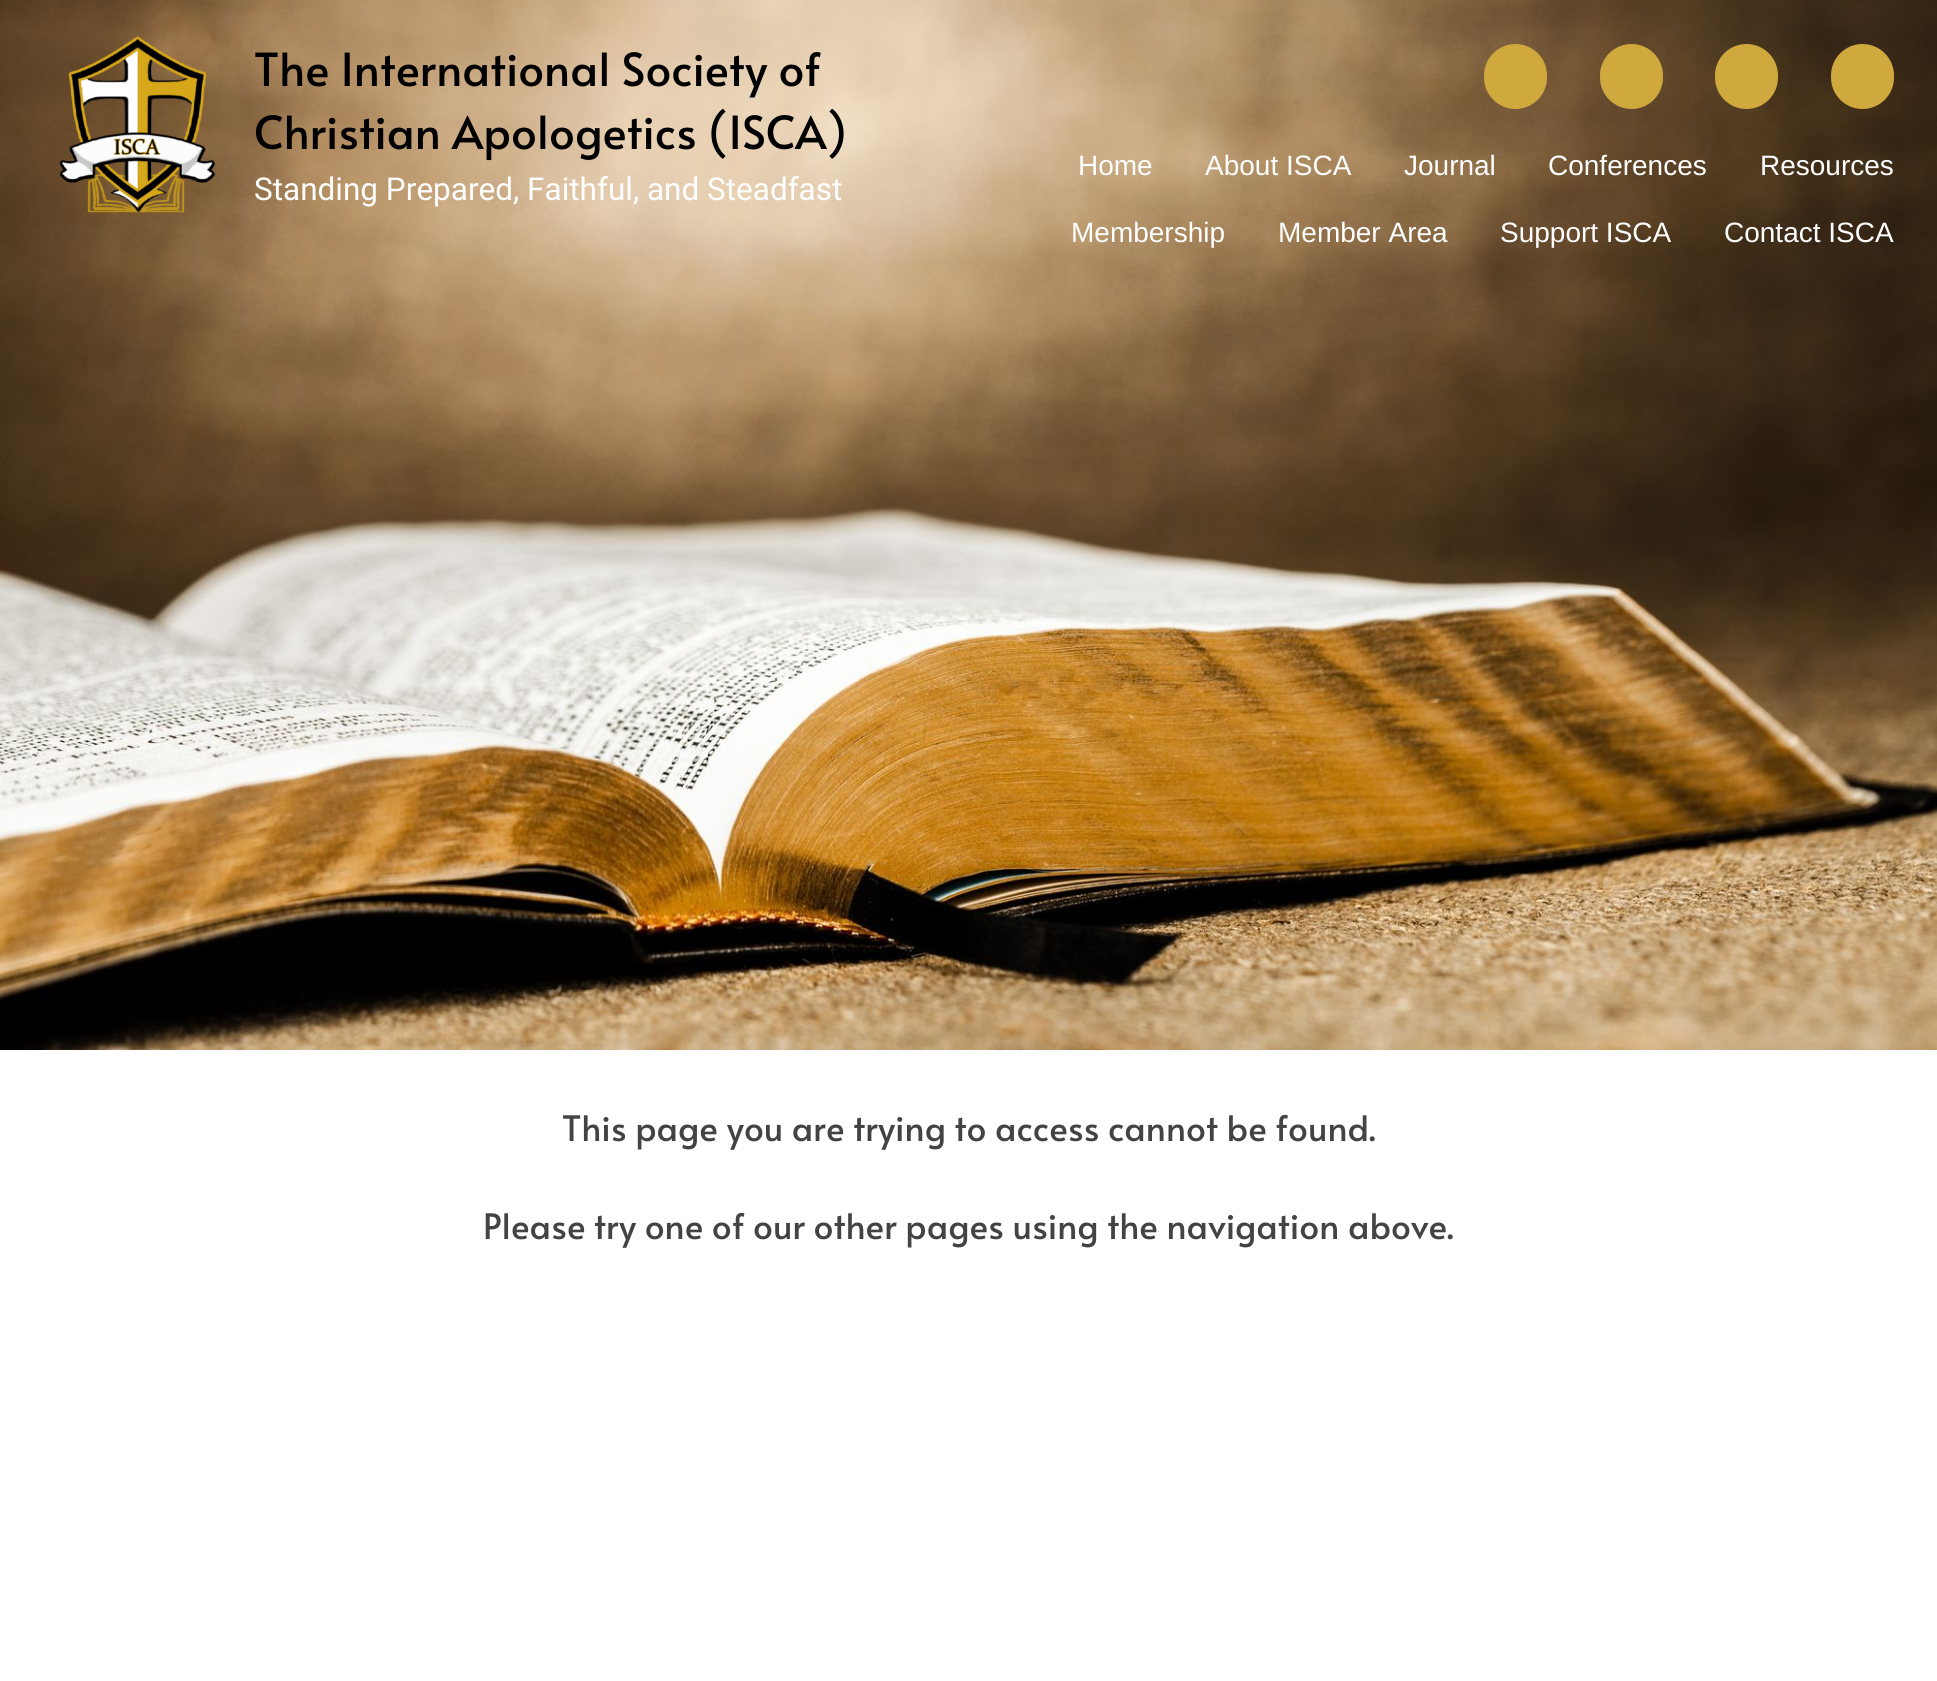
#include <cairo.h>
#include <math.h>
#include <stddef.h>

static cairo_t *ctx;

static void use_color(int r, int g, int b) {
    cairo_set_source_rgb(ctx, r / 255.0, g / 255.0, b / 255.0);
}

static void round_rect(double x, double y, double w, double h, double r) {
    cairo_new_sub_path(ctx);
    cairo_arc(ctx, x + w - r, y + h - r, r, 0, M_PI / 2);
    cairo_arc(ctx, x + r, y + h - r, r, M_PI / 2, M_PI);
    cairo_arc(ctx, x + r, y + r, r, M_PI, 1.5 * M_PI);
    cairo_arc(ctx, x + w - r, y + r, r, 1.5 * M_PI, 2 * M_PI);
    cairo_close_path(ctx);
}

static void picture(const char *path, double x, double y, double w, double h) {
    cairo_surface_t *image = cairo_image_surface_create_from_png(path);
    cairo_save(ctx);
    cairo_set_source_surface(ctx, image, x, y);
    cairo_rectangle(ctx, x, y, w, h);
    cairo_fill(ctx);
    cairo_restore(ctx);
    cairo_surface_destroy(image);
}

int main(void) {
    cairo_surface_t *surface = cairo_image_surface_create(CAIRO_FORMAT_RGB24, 1937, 1681);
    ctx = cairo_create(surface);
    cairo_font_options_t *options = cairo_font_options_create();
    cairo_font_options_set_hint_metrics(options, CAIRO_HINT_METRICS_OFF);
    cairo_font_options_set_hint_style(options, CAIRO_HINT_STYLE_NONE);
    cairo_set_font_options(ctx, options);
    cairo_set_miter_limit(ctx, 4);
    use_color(255, 255, 255);
    cairo_paint(ctx);
    picture("img1.png", 0, 0, 1937, 1050);
    picture("img2.png", 59, 36, 157, 177);
    cairo_select_font_face(ctx, "Alata", CAIRO_FONT_SLANT_NORMAL, CAIRO_FONT_WEIGHT_NORMAL);
    cairo_set_font_size(ctx, 45.5);
    use_color(0, 0, 0);
    cairo_move_to(ctx, 254, 86);
    cairo_show_text(ctx, "The International Society of");
    cairo_move_to(ctx, 254, 149);
    cairo_show_text(ctx, "Christian Apologetics (ISCA)");
    cairo_select_font_face(ctx, "Roboto", CAIRO_FONT_SLANT_NORMAL, CAIRO_FONT_WEIGHT_NORMAL);
    cairo_set_font_size(ctx, 31.5);
    use_color(255, 255, 255);
    cairo_move_to(ctx, 254, 200);
    cairo_show_text(ctx, "Standing Prepared, Faithful, and Steadfast");
    use_color(207, 168, 62);
    round_rect(1484, 44, 63, 65, 31.5);
    cairo_fill(ctx);
    round_rect(1600, 44, 63, 65, 31.5);
    cairo_fill(ctx);
    round_rect(1715, 44, 63, 65, 31.5);
    cairo_fill(ctx);
    round_rect(1831, 44, 63, 65, 31.5);
    cairo_fill(ctx);
    cairo_select_font_face(ctx, "Liberation Sans", CAIRO_FONT_SLANT_NORMAL, CAIRO_FONT_WEIGHT_NORMAL);
    cairo_set_font_size(ctx, 28);
    use_color(255, 255, 255);
    cairo_move_to(ctx, 1078, 175);
    cairo_show_text(ctx, "Home");
    cairo_move_to(ctx, 1205, 175);
    cairo_show_text(ctx, "About ISCA");
    cairo_move_to(ctx, 1404, 175);
    cairo_show_text(ctx, "Journal");
    cairo_move_to(ctx, 1548, 175);
    cairo_show_text(ctx, "Conferences");
    cairo_move_to(ctx, 1760, 175);
    cairo_show_text(ctx, "Resources");
    cairo_move_to(ctx, 1071, 242);
    cairo_show_text(ctx, "Membership");
    cairo_move_to(ctx, 1278, 242);
    cairo_show_text(ctx, "Member Area");
    cairo_move_to(ctx, 1500, 242);
    cairo_show_text(ctx, "Support ISCA");
    cairo_move_to(ctx, 1724, 242);
    cairo_show_text(ctx, "Contact ISCA");
    cairo_select_font_face(ctx, "Alata", CAIRO_FONT_SLANT_NORMAL, CAIRO_FONT_WEIGHT_NORMAL);
    cairo_set_font_size(ctx, 35);
    use_color(67, 67, 67);
    cairo_move_to(ctx, 562, 1141);
    cairo_show_text(ctx, "This page you are trying to access cannot be found.");
    cairo_move_to(ctx, 483, 1239);
    cairo_show_text(ctx, "Please try one of our other pages using the navigation above.");
    cairo_surface_write_to_png(surface, "result.png");
    cairo_font_options_destroy(options);
    cairo_destroy(ctx);
    cairo_surface_destroy(surface);
    return 0;
}
